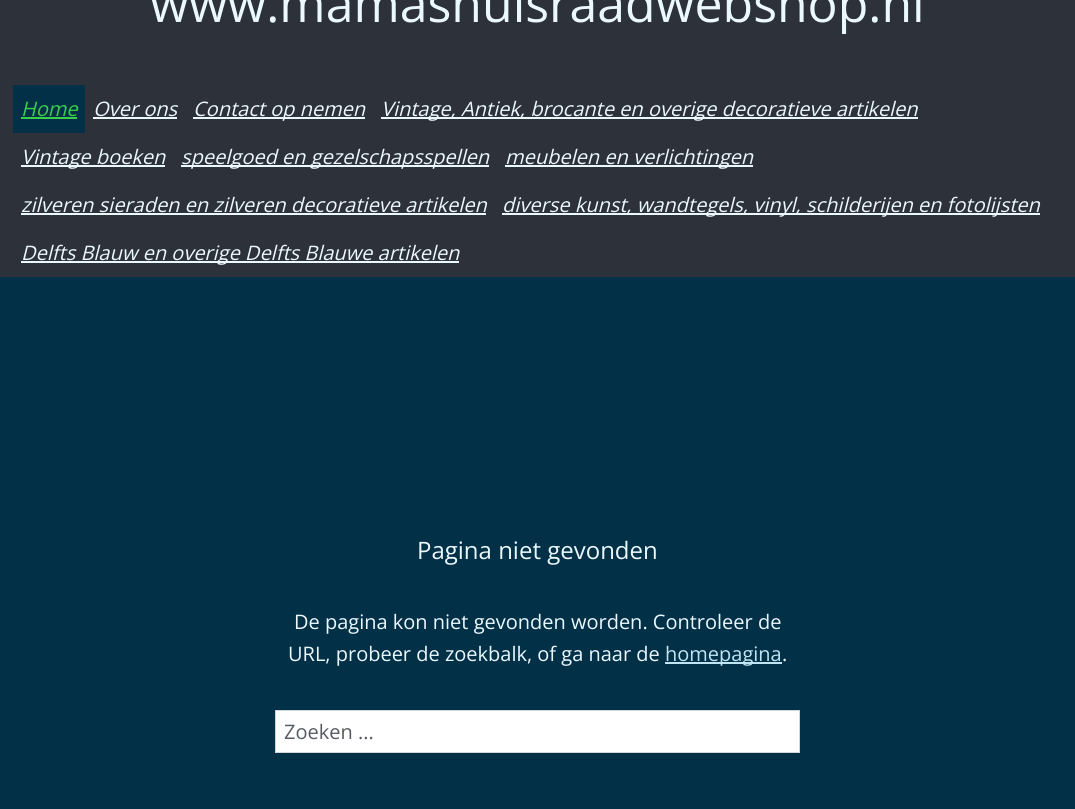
#include <cairo.h>
#include <math.h>
#include <stddef.h>

static cairo_t *ctx;

static void use_color(int r, int g, int b) {
    cairo_set_source_rgb(ctx, r / 255.0, g / 255.0, b / 255.0);
}

int main(void) {
    cairo_surface_t *surface = cairo_image_surface_create(CAIRO_FORMAT_RGB24, 1075, 809);
    ctx = cairo_create(surface);
    cairo_font_options_t *options = cairo_font_options_create();
    cairo_font_options_set_hint_metrics(options, CAIRO_HINT_METRICS_OFF);
    cairo_font_options_set_hint_style(options, CAIRO_HINT_STYLE_NONE);
    cairo_set_font_options(ctx, options);
    cairo_set_miter_limit(ctx, 4);
    use_color(2, 48, 71);
    cairo_paint(ctx);
    use_color(45, 49, 57);
    cairo_rectangle(ctx, 0, 0, 1075, 277);
    cairo_fill(ctx);
    cairo_select_font_face(ctx, "Open Sans", CAIRO_FONT_SLANT_NORMAL, CAIRO_FONT_WEIGHT_NORMAL);
    cairo_set_font_size(ctx, 50);
    use_color(235, 248, 254);
    cairo_move_to(ctx, 150, 22);
    cairo_show_text(ctx, "www.mamashuisraadwebshop.nl");
    use_color(2, 48, 71);
    cairo_rectangle(ctx, 13, 85, 72, 48);
    cairo_fill(ctx);
    cairo_select_font_face(ctx, "Open Sans", CAIRO_FONT_SLANT_ITALIC, CAIRO_FONT_WEIGHT_NORMAL);
    cairo_set_font_size(ctx, 20);
    use_color(58, 207, 75);
    cairo_move_to(ctx, 21, 116);
    cairo_show_text(ctx, "Home");
    cairo_rectangle(ctx, 21, 117, 56, 2);
    cairo_fill(ctx);
    use_color(235, 248, 254);
    cairo_move_to(ctx, 93, 116);
    cairo_show_text(ctx, "Over ons");
    cairo_rectangle(ctx, 93, 117, 84, 2);
    cairo_fill(ctx);
    cairo_rectangle(ctx, 193, 117, 172, 2);
    cairo_fill(ctx);
    cairo_move_to(ctx, 193, 116);
    cairo_show_text(ctx, "Contact op nemen");
    cairo_rectangle(ctx, 381, 117, 537, 2);
    cairo_fill(ctx);
    cairo_move_to(ctx, 381, 116);
    cairo_show_text(ctx, "Vintage, Antiek, brocante en overige decoratieve artikelen");
    cairo_rectangle(ctx, 21, 165, 144, 2);
    cairo_fill(ctx);
    cairo_move_to(ctx, 21, 164);
    cairo_show_text(ctx, "Vintage boeken");
    cairo_rectangle(ctx, 181, 165, 308, 2);
    cairo_fill(ctx);
    cairo_move_to(ctx, 181, 164);
    cairo_show_text(ctx, "speelgoed en gezelschapsspellen");
    cairo_rectangle(ctx, 505, 165, 248, 2);
    cairo_fill(ctx);
    cairo_move_to(ctx, 505, 164);
    cairo_show_text(ctx, "meubelen en verlichtingen");
    cairo_move_to(ctx, 21, 212);
    cairo_show_text(ctx, "zilveren sieraden en zilveren decoratieve artikelen");
    cairo_rectangle(ctx, 21, 213, 465, 2);
    cairo_fill(ctx);
    cairo_rectangle(ctx, 502, 213, 538, 2);
    cairo_fill(ctx);
    cairo_move_to(ctx, 502, 212);
    cairo_show_text(ctx, "diverse kunst, wandtegels, vinyl, schilderijen en fotolijsten");
    cairo_rectangle(ctx, 21, 261, 438, 2);
    cairo_fill(ctx);
    cairo_move_to(ctx, 21, 260);
    cairo_show_text(ctx, "Delfts Blauw en overige Delfts Blauwe artikelen");
    cairo_select_font_face(ctx, "Open Sans", CAIRO_FONT_SLANT_NORMAL, CAIRO_FONT_WEIGHT_NORMAL);
    cairo_set_font_size(ctx, 24);
    cairo_move_to(ctx, 417, 559);
    cairo_show_text(ctx, "Pagina niet gevonden");
    cairo_set_font_size(ctx, 20);
    cairo_move_to(ctx, 294, 629);
    cairo_show_text(ctx, "De pagina kon niet gevonden worden. Controleer de");
    cairo_move_to(ctx, 288, 661);
    cairo_show_text(ctx, "URL, probeer de zoekbalk, of ga naar de");
    use_color(191, 228, 244);
    cairo_rectangle(ctx, 665, 662, 117, 2);
    cairo_fill(ctx);
    cairo_move_to(ctx, 665, 661);
    cairo_show_text(ctx, "homepagina");
    use_color(235, 248, 254);
    cairo_move_to(ctx, 782, 661);
    cairo_show_text(ctx, ".");
    use_color(255, 255, 255);
    cairo_rectangle(ctx, 275.5, 710.5, 524, 42);
    cairo_fill_preserve(ctx);
    use_color(211, 213, 217);
    cairo_set_line_width(ctx, 1);
    cairo_stroke(ctx);
    use_color(87, 91, 98);
    cairo_move_to(ctx, 284, 739);
    cairo_show_text(ctx, "Zoeken ...");
    cairo_surface_write_to_png(surface, "result.png");
    cairo_font_options_destroy(options);
    cairo_destroy(ctx);
    cairo_surface_destroy(surface);
    return 0;
}
